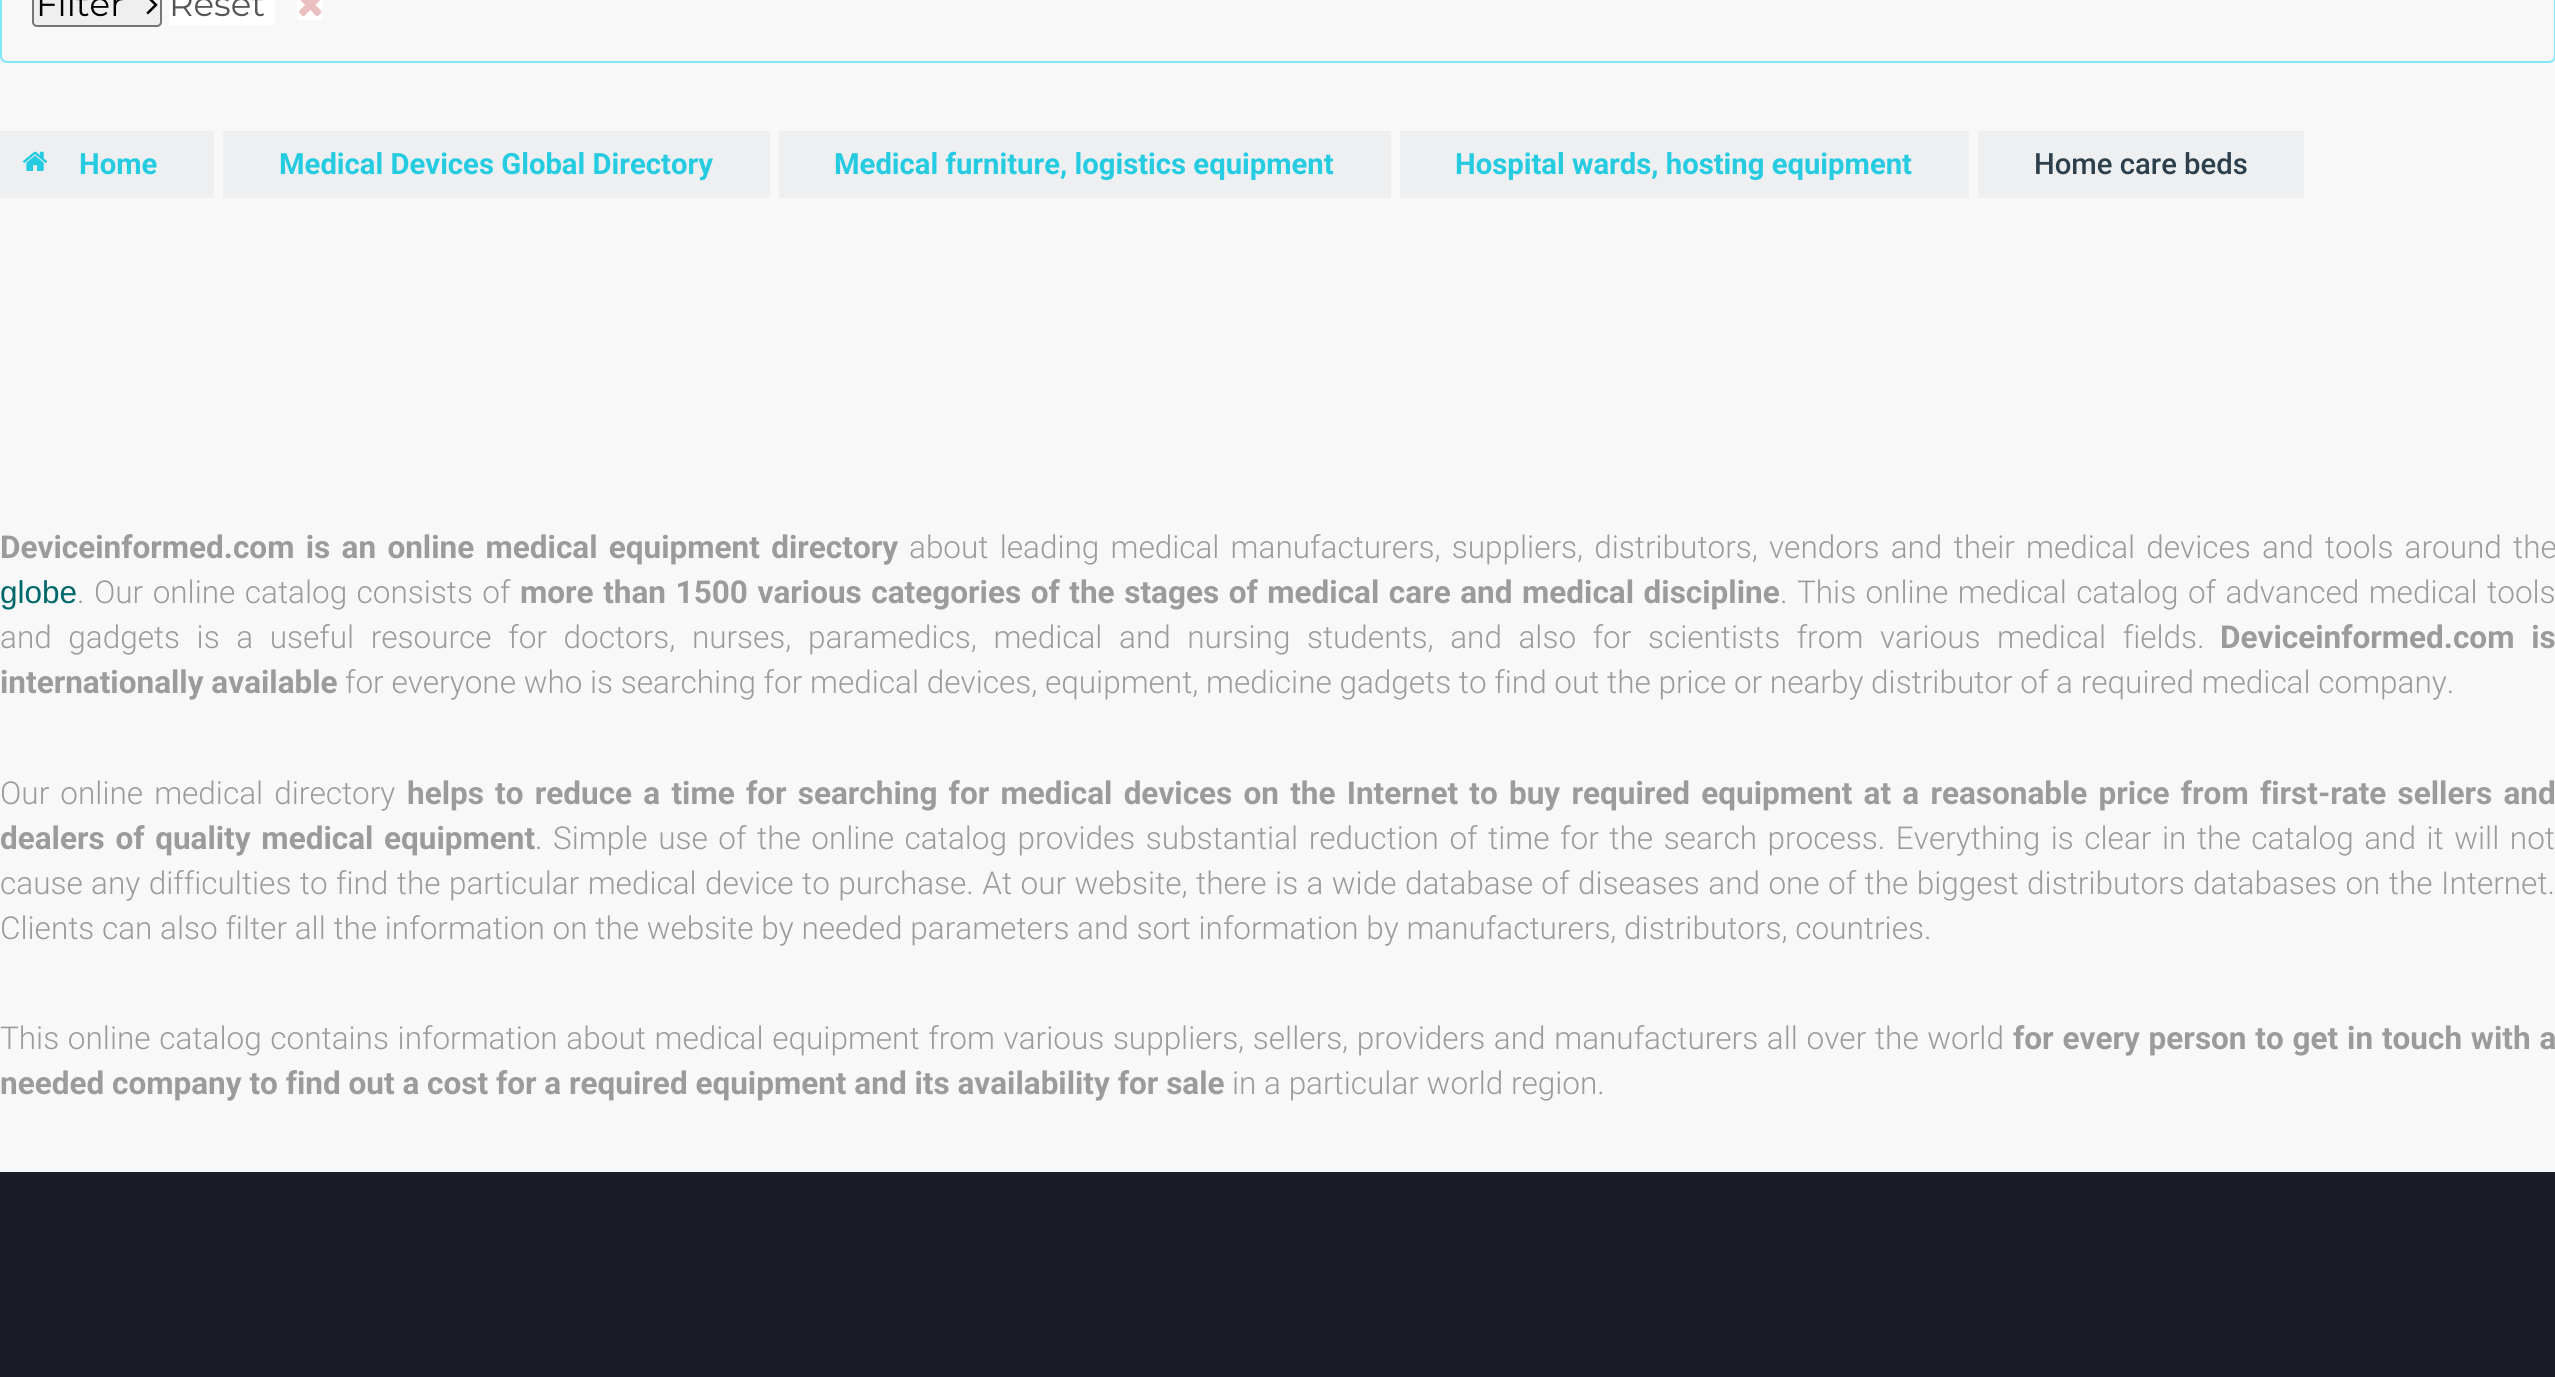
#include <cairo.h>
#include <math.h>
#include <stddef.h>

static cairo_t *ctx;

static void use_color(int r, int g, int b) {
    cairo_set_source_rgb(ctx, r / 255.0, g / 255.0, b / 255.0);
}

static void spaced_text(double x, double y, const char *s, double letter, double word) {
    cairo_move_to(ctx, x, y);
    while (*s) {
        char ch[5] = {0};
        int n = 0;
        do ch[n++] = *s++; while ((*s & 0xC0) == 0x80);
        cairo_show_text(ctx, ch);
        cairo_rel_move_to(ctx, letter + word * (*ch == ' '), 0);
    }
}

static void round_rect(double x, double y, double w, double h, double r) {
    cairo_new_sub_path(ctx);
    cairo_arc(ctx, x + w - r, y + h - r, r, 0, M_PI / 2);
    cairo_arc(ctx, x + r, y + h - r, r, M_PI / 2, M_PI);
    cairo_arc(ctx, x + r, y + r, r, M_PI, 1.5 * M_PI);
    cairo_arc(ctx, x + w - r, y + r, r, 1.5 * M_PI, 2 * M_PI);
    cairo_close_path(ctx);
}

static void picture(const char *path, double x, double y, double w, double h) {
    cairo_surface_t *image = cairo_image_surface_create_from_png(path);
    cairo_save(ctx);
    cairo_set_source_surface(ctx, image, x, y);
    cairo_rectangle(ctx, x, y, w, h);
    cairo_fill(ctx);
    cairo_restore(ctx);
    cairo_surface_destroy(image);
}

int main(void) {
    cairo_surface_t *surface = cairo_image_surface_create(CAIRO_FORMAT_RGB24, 2555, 1377);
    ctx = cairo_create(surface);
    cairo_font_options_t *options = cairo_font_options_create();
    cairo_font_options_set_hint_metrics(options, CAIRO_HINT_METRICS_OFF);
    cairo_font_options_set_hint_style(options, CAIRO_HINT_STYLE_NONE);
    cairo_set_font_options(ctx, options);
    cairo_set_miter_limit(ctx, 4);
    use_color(248, 248, 248);
    cairo_paint(ctx);
    round_rect(1, -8, 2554, 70, 6);
    use_color(129, 232, 250);
    cairo_stroke(ctx);
    use_color(239, 239, 239);
    round_rect(33, -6, 128, 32, 4);
    cairo_fill_preserve(ctx);
    use_color(118, 118, 118);
    cairo_stroke(ctx);
    cairo_select_font_face(ctx, "Montserrat", CAIRO_FONT_SLANT_NORMAL, CAIRO_FONT_WEIGHT_NORMAL);
    cairo_set_font_size(ctx, 34);
    use_color(0, 0, 0);
    cairo_move_to(ctx, 36, 16);
    cairo_show_text(ctx, "Filter");
    picture("img1.png", 146, 0, 12, 15);
    use_color(255, 255, 255);
    cairo_rectangle(ctx, 169, 0, 106, 25);
    cairo_fill(ctx);
    use_color(85, 85, 85);
    cairo_move_to(ctx, 169, 16);
    cairo_show_text(ctx, "Reset");
    use_color(255, 255, 255);
    cairo_rectangle(ctx, 297, 0, 25, 20);
    cairo_fill(ctx);
    picture("img2.png", 299, 0, 23, 16);
    use_color(237, 239, 240);
    cairo_rectangle(ctx, 0, 131, 214, 67);
    cairo_fill(ctx);
    picture("img3.png", 22, 151, 26, 20);
    cairo_select_font_face(ctx, "Roboto", CAIRO_FONT_SLANT_NORMAL, CAIRO_FONT_WEIGHT_BOLD);
    cairo_set_font_size(ctx, 29.25);
    use_color(36, 203, 225);
    cairo_move_to(ctx, 79, 174);
    cairo_show_text(ctx, "Home");
    use_color(237, 239, 240);
    cairo_rectangle(ctx, 223, 131, 547, 67);
    cairo_fill(ctx);
    use_color(36, 203, 225);
    cairo_move_to(ctx, 279, 174);
    cairo_show_text(ctx, "Medical Devices Global Directory");
    use_color(237, 239, 240);
    cairo_rectangle(ctx, 779, 131, 612, 67);
    cairo_fill(ctx);
    use_color(36, 203, 225);
    cairo_move_to(ctx, 834, 174);
    cairo_show_text(ctx, "Medical furniture, logistics equipment");
    use_color(237, 239, 240);
    cairo_rectangle(ctx, 1400, 131, 569, 67);
    cairo_fill(ctx);
    use_color(36, 203, 225);
    cairo_move_to(ctx, 1455, 174);
    cairo_show_text(ctx, "Hospital wards, hosting equipment");
    use_color(237, 239, 240);
    cairo_rectangle(ctx, 1978, 131, 326, 67);
    cairo_fill(ctx);
    cairo_select_font_face(ctx, "Roboto Medium", CAIRO_FONT_SLANT_NORMAL, CAIRO_FONT_WEIGHT_NORMAL);
    use_color(44, 63, 76);
    cairo_move_to(ctx, 2034, 174);
    cairo_show_text(ctx, "Home care beds");
    cairo_select_font_face(ctx, "Roboto", CAIRO_FONT_SLANT_NORMAL, CAIRO_FONT_WEIGHT_BOLD);
    cairo_set_font_size(ctx, 31.5);
    use_color(155, 155, 155);
    spaced_text(0, 558, "Deviceinformed.com is an online medical equipment directory", 0, 3.5);
    cairo_select_font_face(ctx, "Roboto Light", CAIRO_FONT_SLANT_NORMAL, CAIRO_FONT_WEIGHT_NORMAL);
    spaced_text(909, 558, "about leading medical manufacturers, suppliers, distributors, vendors and their medical devices and tools around the", 0, 3.5);
    cairo_select_font_face(ctx, "Liberation Sans", CAIRO_FONT_SLANT_NORMAL, CAIRO_FONT_WEIGHT_NORMAL);
    use_color(0, 104, 106);
    cairo_move_to(ctx, 0, 603);
    cairo_show_text(ctx, "globe");
    cairo_select_font_face(ctx, "Roboto Light", CAIRO_FONT_SLANT_NORMAL, CAIRO_FONT_WEIGHT_NORMAL);
    use_color(155, 155, 155);
    spaced_text(77, 603, ". Our online catalog consists of", 0, 1.75);
    cairo_select_font_face(ctx, "Roboto", CAIRO_FONT_SLANT_NORMAL, CAIRO_FONT_WEIGHT_BOLD);
    spaced_text(520, 603, "more than 1500 various categories of the stages of medical care and medical discipline", 0, 1.75);
    cairo_select_font_face(ctx, "Roboto Light", CAIRO_FONT_SLANT_NORMAL, CAIRO_FONT_WEIGHT_NORMAL);
    spaced_text(1780, 603, ". This online medical catalog of advanced medical tools", 0, 1.75);
    spaced_text(0, 648, "and gadgets is a useful resource for doctors, nurses, paramedics, medical and nursing students, and also for scientists from various medical fields.", 0, 8.9);
    cairo_select_font_face(ctx, "Roboto", CAIRO_FONT_SLANT_NORMAL, CAIRO_FONT_WEIGHT_BOLD);
    spaced_text(2220, 648, "Deviceinformed.com is", 0, 8.9);
    cairo_move_to(ctx, 0, 693);
    cairo_show_text(ctx, "internationally available");
    cairo_select_font_face(ctx, "Roboto Light", CAIRO_FONT_SLANT_NORMAL, CAIRO_FONT_WEIGHT_NORMAL);
    cairo_move_to(ctx, 345, 693);
    cairo_show_text(ctx, "for everyone who is searching for medical devices, equipment, medicine gadgets to find out the price or nearby distributor of a required medical company.");
    spaced_text(0, 804, "Our online medical directory", 0, 3.4);
    cairo_select_font_face(ctx, "Roboto", CAIRO_FONT_SLANT_NORMAL, CAIRO_FONT_WEIGHT_BOLD);
    spaced_text(407, 804, "helps to reduce a time for searching for medical devices on the Internet to buy required equipment at a reasonable price from first-rate sellers and", 0, 3.4);
    spaced_text(0, 849, "dealers of quality medical equipment", 0, 2.9);
    cairo_select_font_face(ctx, "Roboto Light", CAIRO_FONT_SLANT_NORMAL, CAIRO_FONT_WEIGHT_NORMAL);
    spaced_text(535, 849, ". Simple use of the online catalog provides substantial reduction of time for the search process. Everything is clear in the catalog and it will not", 0, 2.9);
    spaced_text(0, 894, "cause any difficulties to find the particular medical device to purchase. At our website, there is a wide database of diseases and one of the biggest distributors databases on the Internet.", 0, 0.75);
    cairo_move_to(ctx, 0, 939);
    cairo_show_text(ctx, "Clients can also filter all the information on the website by needed parameters and sort information by manufacturers, distributors, countries.");
    spaced_text(0, 1049, "This online catalog contains information about medical equipment from various suppliers, sellers, providers and manufacturers all over the world", 0, 1);
    cairo_select_font_face(ctx, "Roboto", CAIRO_FONT_SLANT_NORMAL, CAIRO_FONT_WEIGHT_BOLD);
    spaced_text(2013, 1049, "for every person to get in touch with a", 0, 1);
    cairo_move_to(ctx, 0, 1094);
    cairo_show_text(ctx, "needed company to find out a cost for a required equipment and its availability for sale");
    cairo_select_font_face(ctx, "Roboto Light", CAIRO_FONT_SLANT_NORMAL, CAIRO_FONT_WEIGHT_NORMAL);
    cairo_move_to(ctx, 1232, 1094);
    cairo_show_text(ctx, "in a particular world region.");
    use_color(26, 28, 40);
    cairo_rectangle(ctx, 0, 1172, 2555, 205);
    cairo_fill(ctx);
    cairo_surface_write_to_png(surface, "result.png");
    cairo_font_options_destroy(options);
    cairo_destroy(ctx);
    cairo_surface_destroy(surface);
    return 0;
}
